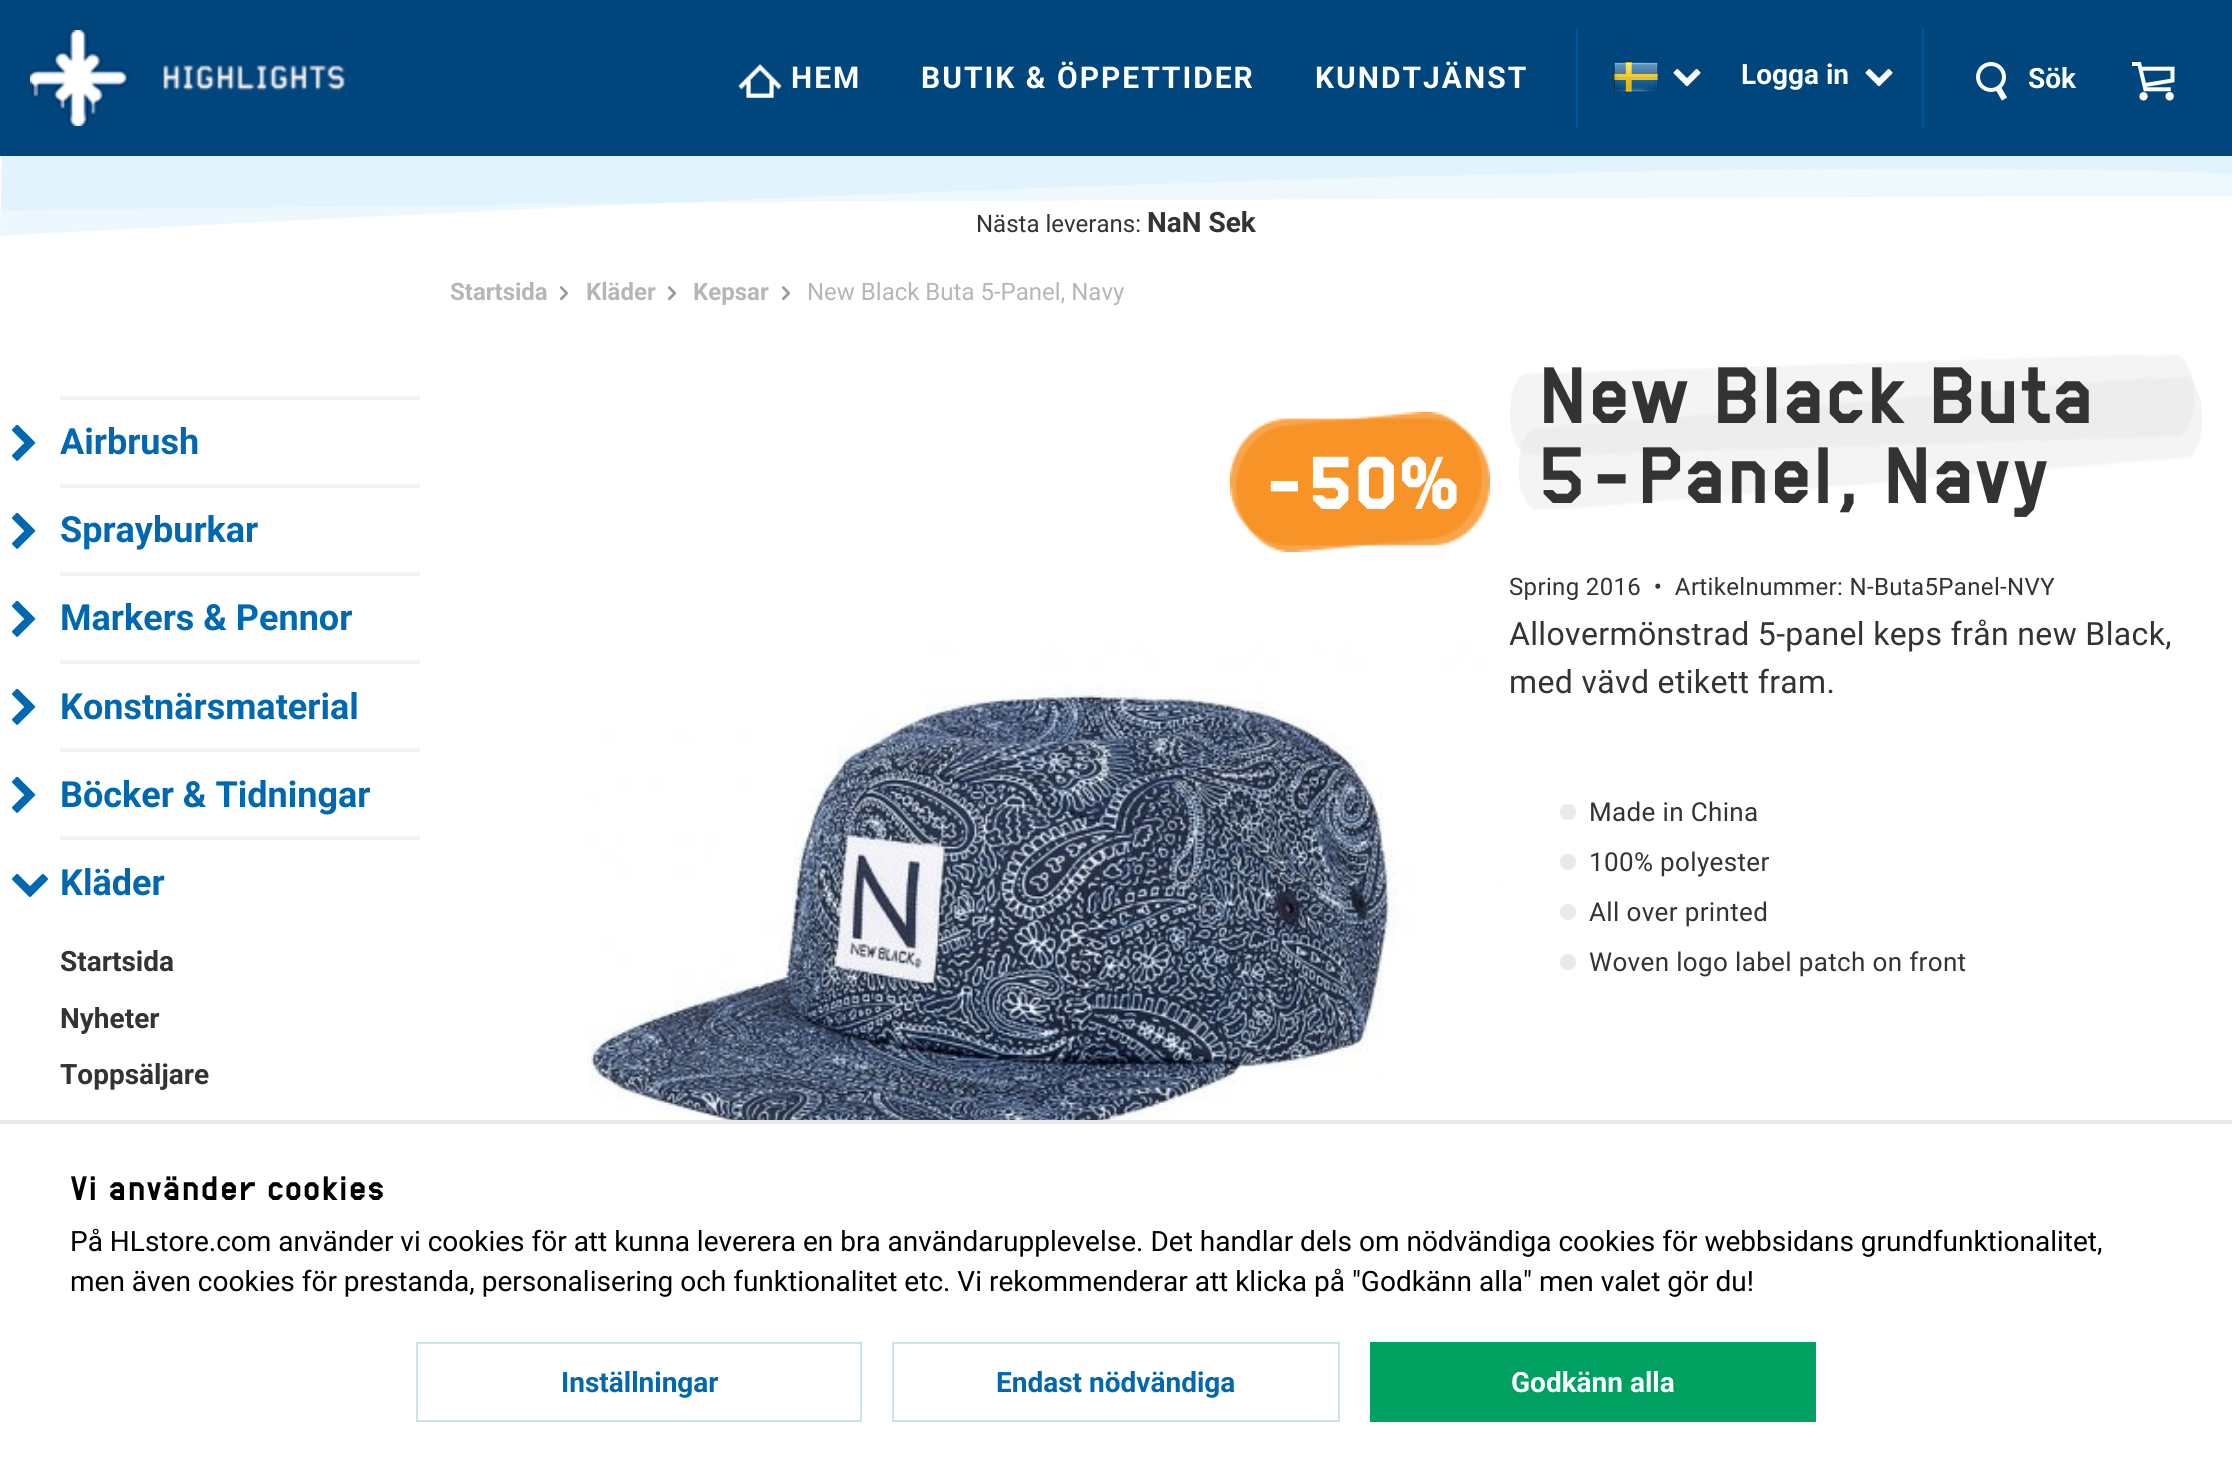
#include <cairo.h>
#include <math.h>
#include <stddef.h>

static cairo_t *ctx;

static void use_color(int r, int g, int b) {
    cairo_set_source_rgb(ctx, r / 255.0, g / 255.0, b / 255.0);
}

static void spaced_text(double x, double y, const char *s, double letter, double word) {
    cairo_move_to(ctx, x, y);
    while (*s) {
        char ch[5] = {0};
        int n = 0;
        do ch[n++] = *s++; while ((*s & 0xC0) == 0x80);
        cairo_show_text(ctx, ch);
        cairo_rel_move_to(ctx, letter + word * (*ch == ' '), 0);
    }
}

static void picture(const char *path, double x, double y, double w, double h) {
    cairo_surface_t *image = cairo_image_surface_create_from_png(path);
    cairo_save(ctx);
    cairo_set_source_surface(ctx, image, x, y);
    cairo_rectangle(ctx, x, y, w, h);
    cairo_fill(ctx);
    cairo_restore(ctx);
    cairo_surface_destroy(image);
}

int main(void) {
    cairo_surface_t *surface = cairo_image_surface_create(CAIRO_FORMAT_RGB24, 2232, 1461);
    ctx = cairo_create(surface);
    cairo_font_options_t *options = cairo_font_options_create();
    cairo_font_options_set_hint_metrics(options, CAIRO_HINT_METRICS_OFF);
    cairo_font_options_set_hint_style(options, CAIRO_HINT_STYLE_NONE);
    cairo_set_font_options(ctx, options);
    cairo_set_miter_limit(ctx, 4);
    use_color(255, 255, 255);
    cairo_paint(ctx);
    use_color(0, 69, 124);
    cairo_rectangle(ctx, 0, 0, 2232, 156);
    cairo_fill(ctx);
    picture("img1.png", 30, 30, 315, 96);
    picture("img2.png", 738, 64, 44, 34);
    cairo_select_font_face(ctx, "Roboto", CAIRO_FONT_SLANT_NORMAL, CAIRO_FONT_WEIGHT_BOLD);
    cairo_set_font_size(ctx, 30);
    use_color(255, 255, 255);
    spaced_text(791, 88, "HEM", 2, 0);
    spaced_text(921, 88, "BUTIK & ÖPPETTIDER", 2, 0);
    spaced_text(1315, 88, "KUNDTJÄNST", 2, 0);
    use_color(0, 84, 153);
    cairo_rectangle(ctx, 1576, 28, 2, 100);
    cairo_fill(ctx);
    picture("img3.png", 1614, 62, 44, 30);
    picture("img4.png", 1673, 68, 28, 19);
    cairo_set_font_size(ctx, 28);
    use_color(255, 255, 255);
    cairo_move_to(ctx, 1741, 84);
    cairo_show_text(ctx, "Logga in");
    picture("img4.png", 1865, 68, 28, 19);
    use_color(0, 84, 153);
    cairo_rectangle(ctx, 1922, 28, 2, 100);
    cairo_fill(ctx);
    picture("img5.png", 1976, 62, 31, 39);
    use_color(255, 255, 255);
    cairo_move_to(ctx, 2028, 88);
    cairo_show_text(ctx, "Sök");
    picture("img6.png", 2132, 62, 43, 39);
    picture("img7.png", 0, 156, 2232, 80);
    cairo_select_font_face(ctx, "Roboto", CAIRO_FONT_SLANT_NORMAL, CAIRO_FONT_WEIGHT_NORMAL);
    cairo_set_font_size(ctx, 24);
    use_color(51, 51, 51);
    cairo_move_to(ctx, 976, 232);
    cairo_show_text(ctx, "Nästa leverans:");
    cairo_select_font_face(ctx, "Roboto", CAIRO_FONT_SLANT_NORMAL, CAIRO_FONT_WEIGHT_BOLD);
    cairo_set_font_size(ctx, 28);
    cairo_move_to(ctx, 1147, 232);
    cairo_show_text(ctx, "NaN Sek");
    use_color(243, 243, 243);
    cairo_rectangle(ctx, 60, 396, 360, 4);
    cairo_fill(ctx);
    picture("img8.png", 12, 424, 24, 37);
    cairo_set_font_size(ctx, 36);
    use_color(0, 103, 177);
    cairo_move_to(ctx, 60, 454);
    cairo_show_text(ctx, "Airbrush");
    use_color(243, 243, 243);
    cairo_rectangle(ctx, 60, 484, 360, 4);
    cairo_fill(ctx);
    picture("img8.png", 12, 512, 24, 37);
    use_color(0, 103, 177);
    cairo_move_to(ctx, 60, 542);
    cairo_show_text(ctx, "Sprayburkar");
    use_color(243, 243, 243);
    cairo_rectangle(ctx, 60, 572, 360, 4);
    cairo_fill(ctx);
    picture("img8.png", 12, 600, 24, 37);
    use_color(0, 103, 177);
    cairo_move_to(ctx, 60, 630);
    cairo_show_text(ctx, "Markers & Pennor");
    use_color(243, 243, 243);
    cairo_rectangle(ctx, 60, 660, 360, 4);
    cairo_fill(ctx);
    picture("img8.png", 12, 688, 24, 37);
    use_color(0, 103, 177);
    cairo_move_to(ctx, 60, 719);
    cairo_show_text(ctx, "Konstnärsmaterial");
    use_color(243, 243, 243);
    cairo_rectangle(ctx, 60, 748, 360, 4);
    cairo_fill(ctx);
    picture("img8.png", 12, 776, 24, 37);
    use_color(0, 103, 177);
    cairo_move_to(ctx, 60, 807);
    cairo_show_text(ctx, "Böcker & Tidningar");
    use_color(243, 243, 243);
    cairo_rectangle(ctx, 60, 836, 360, 4);
    cairo_fill(ctx);
    picture("img9.png", 12, 873, 36, 24);
    use_color(0, 103, 177);
    cairo_move_to(ctx, 60, 895);
    cairo_show_text(ctx, "Kläder");
    cairo_set_font_size(ctx, 28);
    use_color(51, 51, 51);
    cairo_move_to(ctx, 60, 971);
    cairo_show_text(ctx, "Startsida");
    cairo_move_to(ctx, 60, 1028);
    cairo_show_text(ctx, "Nyheter");
    cairo_move_to(ctx, 60, 1084);
    cairo_show_text(ctx, "Toppsäljare");
    cairo_set_font_size(ctx, 24);
    use_color(182, 182, 182);
    cairo_move_to(ctx, 450, 300);
    cairo_show_text(ctx, "Startsida");
    picture("img10.png", 560, 286, 8, 15);
    cairo_move_to(ctx, 586, 300);
    cairo_show_text(ctx, "Kläder");
    picture("img10.png", 668, 286, 8, 15);
    cairo_move_to(ctx, 693, 300);
    cairo_show_text(ctx, "Kepsar");
    picture("img10.png", 782, 286, 8, 15);
    cairo_select_font_face(ctx, "Roboto", CAIRO_FONT_SLANT_NORMAL, CAIRO_FONT_WEIGHT_NORMAL);
    cairo_move_to(ctx, 807, 300);
    cairo_show_text(ctx, "New Black Buta 5-Panel, Navy");
    picture("img11.png", 1230, 412, 260, 140);
    cairo_select_font_face(ctx, "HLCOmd", CAIRO_FONT_SLANT_NORMAL, CAIRO_FONT_WEIGHT_BOLD);
    cairo_set_font_size(ctx, 72);
    use_color(255, 255, 255);
    spaced_text(1260, 509, "-50%", 0.35, 0);
    cairo_select_font_face(ctx, "Roboto", CAIRO_FONT_SLANT_NORMAL, CAIRO_FONT_WEIGHT_NORMAL);
    cairo_set_font_size(ctx, 32);
    use_color(51, 51, 51);
    spaced_text(1509, 645, "Allovermönstrad 5-panel keps från new Black,", 0.35, 0);
    picture("img12.png", 587, 644, 923, 476);
    picture("img13.png", 1510, 354, 692, 157);
    cairo_select_font_face(ctx, "HLCOmd Medium", CAIRO_FONT_SLANT_NORMAL, CAIRO_FONT_WEIGHT_NORMAL);
    cairo_set_font_size(ctx, 80);
    spaced_text(1537, 423, "New Black Buta", -1.6, 0);
    spaced_text(1537, 503, "5-Panel, Navy", -1.6, 0);
    cairo_select_font_face(ctx, "Roboto", CAIRO_FONT_SLANT_NORMAL, CAIRO_FONT_WEIGHT_NORMAL);
    cairo_set_font_size(ctx, 24);
    spaced_text(1509, 595, "Spring 2016  •  Artikelnummer: N-Buta5Panel-NVY", 0.35, 0);
    cairo_set_font_size(ctx, 32);
    spaced_text(1509, 693, "med vävd etikett fram.", 0.35, 0);
    picture("img14.png", 1560, 804, 16, 16);
    cairo_set_font_size(ctx, 26);
    spaced_text(1589, 821, "Made in China", 0.35, 0);
    picture("img14.png", 1560, 854, 16, 16);
    spaced_text(1589, 871, "100% polyester", 0.35, 0);
    picture("img14.png", 1560, 904, 16, 16);
    spaced_text(1589, 921, "All over printed", 0.35, 0);
    picture("img14.png", 1560, 954, 16, 16);
    spaced_text(1589, 971, "Woven logo label patch on front", 0.35, 0);
    use_color(233, 233, 233);
    cairo_rectangle(ctx, 0, 1120, 2232, 4);
    cairo_fill(ctx);
    cairo_select_font_face(ctx, "HLCOmd Medium", CAIRO_FONT_SLANT_NORMAL, CAIRO_FONT_WEIGHT_NORMAL);
    cairo_set_font_size(ctx, 34);
    use_color(0, 0, 0);
    cairo_move_to(ctx, 70, 1200);
    cairo_show_text(ctx, "Vi använder cookies");
    cairo_select_font_face(ctx, "Roboto", CAIRO_FONT_SLANT_NORMAL, CAIRO_FONT_WEIGHT_NORMAL);
    cairo_set_font_size(ctx, 28);
    cairo_move_to(ctx, 70, 1251);
    cairo_show_text(ctx, "På HLstore.com använder vi cookies för att kunna leverera en bra användarupplevelse. Det handlar dels om nödvändiga cookies för webbsidans grundfunktionalitet,");
    cairo_move_to(ctx, 70, 1291);
    cairo_show_text(ctx, "men även cookies för prestanda, personalisering och funktionalitet etc. Vi rekommenderar att klicka på \"Godkänn alla\" men valet gör du!");
    cairo_rectangle(ctx, 417, 1343, 444, 78);
    use_color(202, 227, 235);
    cairo_stroke(ctx);
    cairo_select_font_face(ctx, "Roboto", CAIRO_FONT_SLANT_NORMAL, CAIRO_FONT_WEIGHT_BOLD);
    use_color(0, 103, 177);
    cairo_move_to(ctx, 561, 1392);
    cairo_show_text(ctx, "Inställningar");
    cairo_rectangle(ctx, 893, 1343, 446, 78);
    use_color(202, 227, 235);
    cairo_stroke(ctx);
    use_color(0, 103, 177);
    cairo_move_to(ctx, 996, 1392);
    cairo_show_text(ctx, "Endast nödvändiga");
    use_color(0, 161, 96);
    cairo_rectangle(ctx, 1370, 1342, 446, 80);
    cairo_fill(ctx);
    use_color(255, 255, 255);
    cairo_move_to(ctx, 1511, 1392);
    cairo_show_text(ctx, "Godkänn alla");
    cairo_surface_write_to_png(surface, "result.png");
    cairo_font_options_destroy(options);
    cairo_destroy(ctx);
    cairo_surface_destroy(surface);
    return 0;
}
